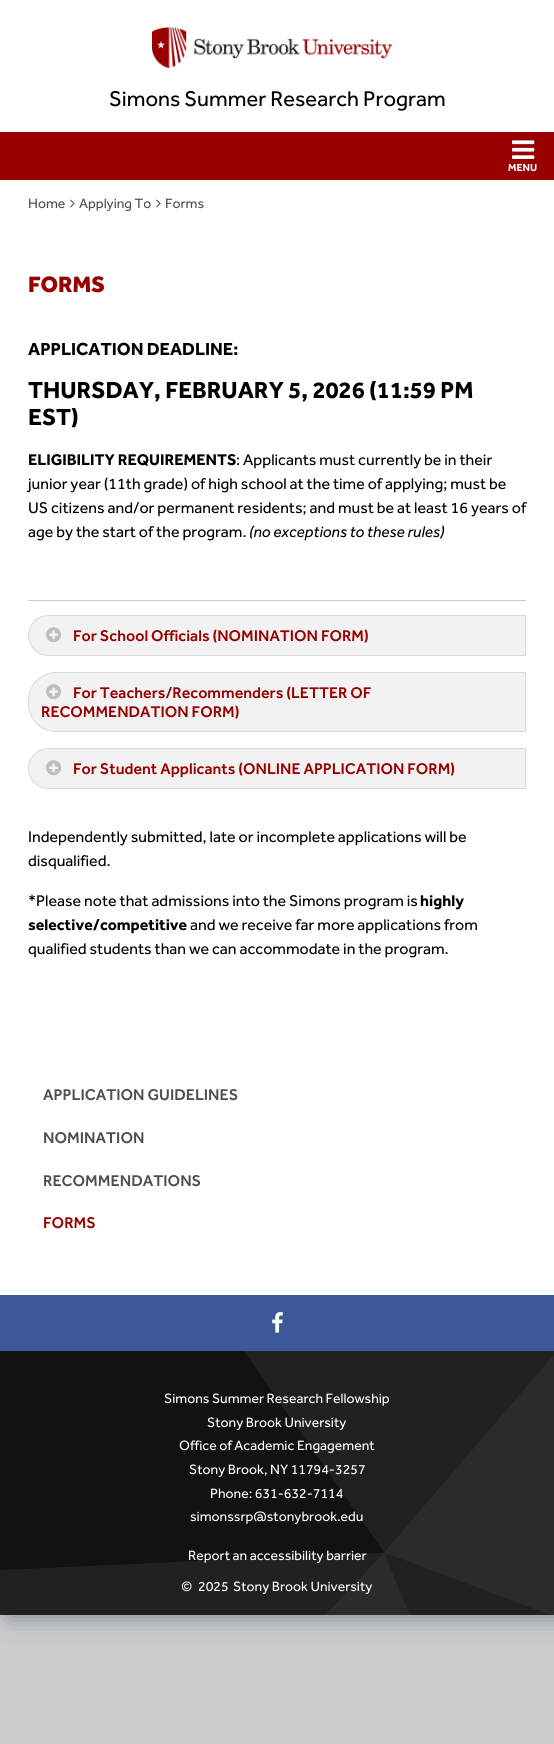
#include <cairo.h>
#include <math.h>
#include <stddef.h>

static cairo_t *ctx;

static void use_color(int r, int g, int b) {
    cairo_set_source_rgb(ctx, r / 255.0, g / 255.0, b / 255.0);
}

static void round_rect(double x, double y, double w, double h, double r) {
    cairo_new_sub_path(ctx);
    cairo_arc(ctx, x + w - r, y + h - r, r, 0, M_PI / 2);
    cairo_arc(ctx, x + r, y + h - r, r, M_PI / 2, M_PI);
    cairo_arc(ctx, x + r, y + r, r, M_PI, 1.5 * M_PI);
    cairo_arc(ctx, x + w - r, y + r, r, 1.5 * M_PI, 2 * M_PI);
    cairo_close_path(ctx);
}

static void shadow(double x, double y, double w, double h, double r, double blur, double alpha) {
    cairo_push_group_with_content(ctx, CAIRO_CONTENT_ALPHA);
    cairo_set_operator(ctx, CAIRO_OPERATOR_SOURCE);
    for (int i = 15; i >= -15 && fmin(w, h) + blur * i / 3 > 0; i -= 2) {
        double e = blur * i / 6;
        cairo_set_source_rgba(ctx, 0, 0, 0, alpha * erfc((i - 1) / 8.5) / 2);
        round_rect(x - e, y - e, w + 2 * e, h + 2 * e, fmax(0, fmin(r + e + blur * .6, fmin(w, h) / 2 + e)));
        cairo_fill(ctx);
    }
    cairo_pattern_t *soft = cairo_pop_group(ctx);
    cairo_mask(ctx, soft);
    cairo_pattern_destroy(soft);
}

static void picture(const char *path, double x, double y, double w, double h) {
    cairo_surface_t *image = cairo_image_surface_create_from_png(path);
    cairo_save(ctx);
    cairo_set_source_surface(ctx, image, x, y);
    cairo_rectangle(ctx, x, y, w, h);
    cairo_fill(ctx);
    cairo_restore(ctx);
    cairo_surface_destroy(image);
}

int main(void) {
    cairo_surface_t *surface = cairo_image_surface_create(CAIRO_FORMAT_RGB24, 554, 1744);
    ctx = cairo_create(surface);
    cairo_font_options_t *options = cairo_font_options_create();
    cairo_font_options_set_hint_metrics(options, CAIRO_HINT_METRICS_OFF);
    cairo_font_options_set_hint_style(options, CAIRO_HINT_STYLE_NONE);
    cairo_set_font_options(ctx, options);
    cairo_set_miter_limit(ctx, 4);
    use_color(204, 204, 204);
    cairo_paint(ctx);
    use_color(0, 28, 55);
    shadow(8, 1, 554, 1615, 0, 12.5, 0.4);
    use_color(255, 255, 255);
    cairo_rectangle(ctx, 0, 0, 554, 1295);
    cairo_fill(ctx);
    picture("img1.png", 152, 27, 240, 42);
    cairo_select_font_face(ctx, "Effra", CAIRO_FONT_SLANT_NORMAL, CAIRO_FONT_WEIGHT_NORMAL);
    cairo_set_font_size(ctx, 22);
    use_color(0, 0, 0);
    cairo_move_to(ctx, 109, 106);
    cairo_show_text(ctx, "Simons Summer Research Program");
    use_color(153, 0, 0);
    cairo_rectangle(ctx, 0, 132, 554, 48);
    cairo_fill(ctx);
    picture("img2.png", 512, 140, 23, 19);
    cairo_select_font_face(ctx, "Effra", CAIRO_FONT_SLANT_NORMAL, CAIRO_FONT_WEIGHT_BOLD);
    cairo_set_font_size(ctx, 10.5);
    use_color(255, 255, 255);
    cairo_move_to(ctx, 508, 171);
    cairo_show_text(ctx, "MENU");
    cairo_select_font_face(ctx, "Effra", CAIRO_FONT_SLANT_NORMAL, CAIRO_FONT_WEIGHT_NORMAL);
    cairo_set_font_size(ctx, 14);
    use_color(78, 78, 78);
    cairo_move_to(ctx, 28, 208);
    cairo_show_text(ctx, "Home");
    picture("img3.png", 70, 199, 5, 9);
    cairo_move_to(ctx, 79, 208);
    cairo_show_text(ctx, "Applying To");
    picture("img3.png", 156, 199, 5, 9);
    cairo_move_to(ctx, 165, 208);
    cairo_show_text(ctx, "Forms");
    cairo_select_font_face(ctx, "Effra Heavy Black", CAIRO_FONT_SLANT_NORMAL, CAIRO_FONT_WEIGHT_NORMAL);
    cairo_set_font_size(ctx, 23);
    use_color(153, 0, 0);
    cairo_move_to(ctx, 28, 292);
    cairo_show_text(ctx, "FORMS");
    cairo_select_font_face(ctx, "Effra", CAIRO_FONT_SLANT_NORMAL, CAIRO_FONT_WEIGHT_BOLD);
    cairo_set_font_size(ctx, 18);
    use_color(0, 0, 0);
    cairo_move_to(ctx, 28, 355);
    cairo_show_text(ctx, "APPLICATION DEADLINE:");
    cairo_set_font_size(ctx, 24);
    cairo_move_to(ctx, 28, 398);
    cairo_show_text(ctx, "THURSDAY, FEBRUARY 5, 2026 (11:59 PM");
    cairo_move_to(ctx, 28, 425);
    cairo_show_text(ctx, "EST)");
    cairo_set_font_size(ctx, 16);
    cairo_move_to(ctx, 28, 465);
    cairo_show_text(ctx, "ELIGIBILITY REQUIREMENTS");
    cairo_select_font_face(ctx, "Effra", CAIRO_FONT_SLANT_NORMAL, CAIRO_FONT_WEIGHT_NORMAL);
    cairo_move_to(ctx, 236, 465);
    cairo_show_text(ctx, ": Applicants must currently be in their");
    cairo_move_to(ctx, 28, 489);
    cairo_show_text(ctx, "junior year (11th grade) of high school at the time of applying; must be");
    cairo_move_to(ctx, 28, 513);
    cairo_show_text(ctx, "US citizens and/or permanent residents; and must be at least 16 years of");
    cairo_move_to(ctx, 28, 537);
    cairo_show_text(ctx, "age by the start of the program.");
    cairo_select_font_face(ctx, "Effra", CAIRO_FONT_SLANT_ITALIC, CAIRO_FONT_WEIGHT_NORMAL);
    cairo_move_to(ctx, 249, 537);
    cairo_show_text(ctx, "(no exceptions to these rules)");
    use_color(204, 204, 204);
    cairo_rectangle(ctx, 28, 600, 498, 1);
    cairo_fill(ctx);
    use_color(242, 242, 242);
    cairo_new_path(ctx);
    cairo_move_to(ctx, 48.5, 615.5);
    cairo_line_to(ctx, 525.5, 615.5);
    cairo_line_to(ctx, 525.5, 655.5);
    cairo_line_to(ctx, 48.5, 655.5);
    cairo_curve_to(ctx, 37.5, 655.5, 28.5, 646.5, 28.5, 635.5);
    cairo_curve_to(ctx, 28.5, 624.5, 37.5, 615.5, 48.5, 615.5);
    cairo_close_path(ctx);
    cairo_fill_preserve(ctx);
    use_color(217, 217, 217);
    cairo_set_line_width(ctx, 1);
    cairo_stroke(ctx);
    picture("img4.png", 46, 627, 15, 16);
    cairo_select_font_face(ctx, "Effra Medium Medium", CAIRO_FONT_SLANT_NORMAL, CAIRO_FONT_WEIGHT_NORMAL);
    use_color(153, 0, 0);
    cairo_move_to(ctx, 73, 641);
    cairo_show_text(ctx, "For School Officials (NOMINATION FORM)");
    use_color(242, 242, 242);
    cairo_new_path(ctx);
    cairo_move_to(ctx, 56, 672.5);
    cairo_line_to(ctx, 525.5, 672.5);
    cairo_line_to(ctx, 525.5, 731.5);
    cairo_line_to(ctx, 56, 731.5);
    cairo_curve_to(ctx, 41, 731.5, 28.5, 719, 28.5, 704);
    cairo_line_to(ctx, 28.5, 700);
    cairo_curve_to(ctx, 28.5, 685, 41, 672.5, 56, 672.5);
    cairo_close_path(ctx);
    cairo_fill_preserve(ctx);
    use_color(217, 217, 217);
    cairo_stroke(ctx);
    picture("img4.png", 46, 684, 15, 16);
    use_color(153, 0, 0);
    cairo_move_to(ctx, 73, 698);
    cairo_show_text(ctx, "For Teachers/Recommenders (LETTER OF");
    cairo_move_to(ctx, 41, 717);
    cairo_show_text(ctx, "RECOMMENDATION FORM)");
    use_color(242, 242, 242);
    cairo_new_path(ctx);
    cairo_move_to(ctx, 48.5, 748.5);
    cairo_line_to(ctx, 525.5, 748.5);
    cairo_line_to(ctx, 525.5, 788.5);
    cairo_line_to(ctx, 48.5, 788.5);
    cairo_curve_to(ctx, 37.5, 788.5, 28.5, 779.5, 28.5, 768.5);
    cairo_curve_to(ctx, 28.5, 757.5, 37.5, 748.5, 48.5, 748.5);
    cairo_close_path(ctx);
    cairo_fill_preserve(ctx);
    use_color(217, 217, 217);
    cairo_stroke(ctx);
    picture("img4.png", 46, 760, 15, 16);
    use_color(153, 0, 0);
    cairo_move_to(ctx, 73, 774);
    cairo_show_text(ctx, "For Student Applicants (ONLINE APPLICATION FORM)");
    cairo_select_font_face(ctx, "Effra", CAIRO_FONT_SLANT_NORMAL, CAIRO_FONT_WEIGHT_NORMAL);
    use_color(0, 0, 0);
    cairo_move_to(ctx, 28, 842);
    cairo_show_text(ctx, "Independently submitted, late or incomplete applications will be");
    cairo_move_to(ctx, 28, 866);
    cairo_show_text(ctx, "disqualified.");
    cairo_move_to(ctx, 28, 906);
    cairo_show_text(ctx, "*Please note that admissions into the Simons program is");
    cairo_select_font_face(ctx, "Effra", CAIRO_FONT_SLANT_NORMAL, CAIRO_FONT_WEIGHT_BOLD);
    cairo_move_to(ctx, 420, 906);
    cairo_show_text(ctx, "highly");
    cairo_move_to(ctx, 28, 930);
    cairo_show_text(ctx, "selective/competitive");
    cairo_select_font_face(ctx, "Effra", CAIRO_FONT_SLANT_NORMAL, CAIRO_FONT_WEIGHT_NORMAL);
    cairo_move_to(ctx, 190, 930);
    cairo_show_text(ctx, "and we receive far more applications from");
    cairo_move_to(ctx, 28, 954);
    cairo_show_text(ctx, "qualified students than we can accommodate in the program.");
    cairo_select_font_face(ctx, "Effra Medium Medium", CAIRO_FONT_SLANT_NORMAL, CAIRO_FONT_WEIGHT_NORMAL);
    cairo_set_font_size(ctx, 16.1);
    use_color(78, 78, 78);
    cairo_move_to(ctx, 43, 1100);
    cairo_show_text(ctx, "APPLICATION GUIDELINES");
    cairo_move_to(ctx, 43, 1143);
    cairo_show_text(ctx, "NOMINATION");
    cairo_move_to(ctx, 43, 1186);
    cairo_show_text(ctx, "RECOMMENDATIONS");
    use_color(153, 0, 0);
    cairo_move_to(ctx, 43, 1228);
    cairo_show_text(ctx, "FORMS");
    use_color(59, 89, 152);
    cairo_rectangle(ctx, 0, 1295, 554, 56);
    cairo_fill(ctx);
    picture("img5.png", 272, 1312, 11, 21);
    picture("img6.png", 0, 1351, 554, 264);
    cairo_select_font_face(ctx, "Effra", CAIRO_FONT_SLANT_NORMAL, CAIRO_FONT_WEIGHT_NORMAL);
    cairo_set_font_size(ctx, 14);
    use_color(255, 255, 255);
    cairo_move_to(ctx, 164, 1403);
    cairo_show_text(ctx, "Simons Summer Research Fellowship");
    cairo_move_to(ctx, 207, 1427);
    cairo_show_text(ctx, "Stony Brook University");
    cairo_move_to(ctx, 179, 1450);
    cairo_show_text(ctx, "Office of Academic Engagement");
    cairo_move_to(ctx, 189, 1474);
    cairo_show_text(ctx, "Stony Brook, NY 11794-3257");
    cairo_move_to(ctx, 210, 1498);
    cairo_show_text(ctx, "Phone: 631-632-7114");
    cairo_move_to(ctx, 190, 1521);
    cairo_show_text(ctx, "simonssrp@stonybrook.edu");
    cairo_move_to(ctx, 188, 1560);
    cairo_show_text(ctx, "Report an accessibility barrier");
    cairo_move_to(ctx, 181, 1591);
    cairo_show_text(ctx, "©");
    cairo_move_to(ctx, 198, 1591);
    cairo_show_text(ctx, "2025");
    cairo_move_to(ctx, 233, 1591);
    cairo_show_text(ctx, "Stony Brook University");
    cairo_surface_write_to_png(surface, "result.png");
    cairo_font_options_destroy(options);
    cairo_destroy(ctx);
    cairo_surface_destroy(surface);
    return 0;
}
